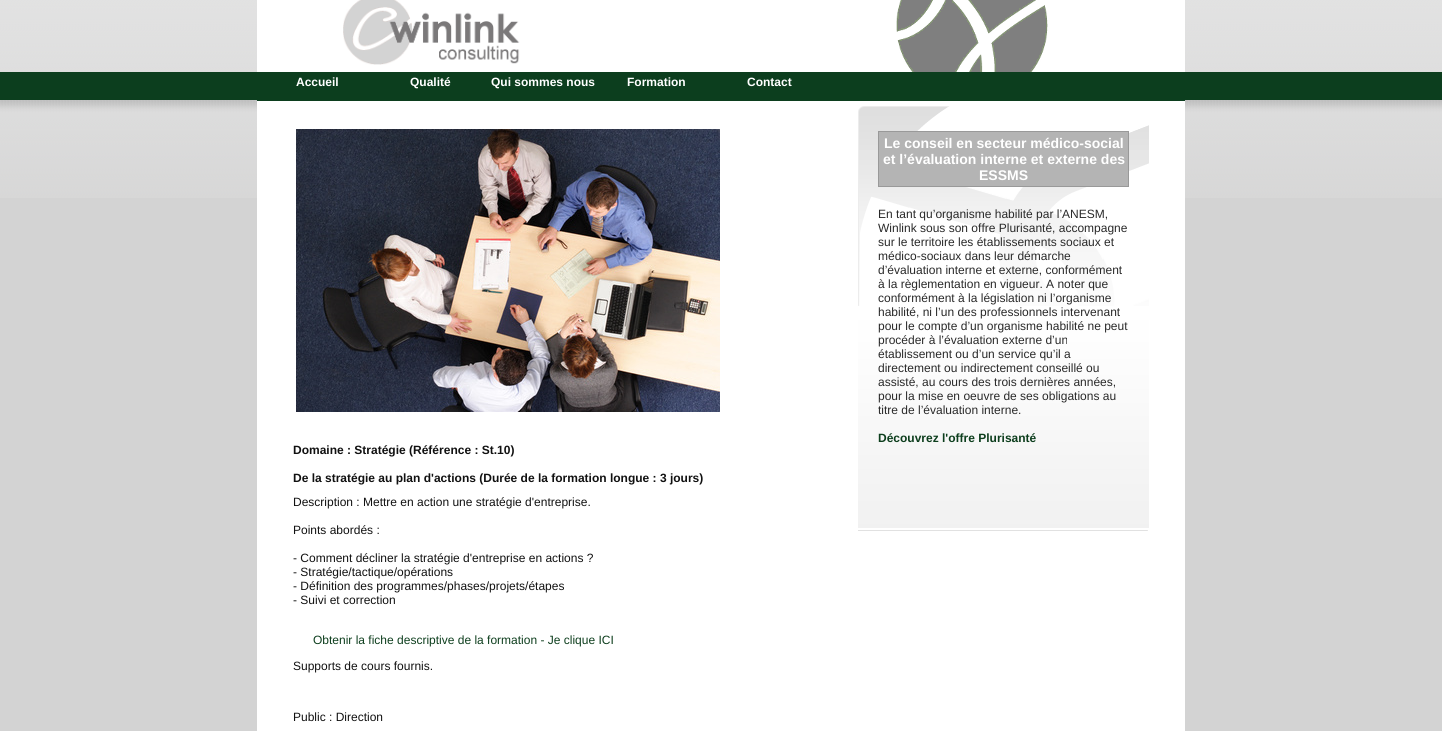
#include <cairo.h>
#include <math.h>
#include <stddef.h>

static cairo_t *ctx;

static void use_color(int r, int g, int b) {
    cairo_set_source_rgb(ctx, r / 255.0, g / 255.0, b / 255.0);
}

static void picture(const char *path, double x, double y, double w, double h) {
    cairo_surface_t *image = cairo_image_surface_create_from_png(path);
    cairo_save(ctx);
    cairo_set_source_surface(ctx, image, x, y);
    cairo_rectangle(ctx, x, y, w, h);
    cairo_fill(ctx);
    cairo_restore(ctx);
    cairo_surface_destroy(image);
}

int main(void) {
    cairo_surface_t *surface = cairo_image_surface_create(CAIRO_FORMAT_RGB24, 1442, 731);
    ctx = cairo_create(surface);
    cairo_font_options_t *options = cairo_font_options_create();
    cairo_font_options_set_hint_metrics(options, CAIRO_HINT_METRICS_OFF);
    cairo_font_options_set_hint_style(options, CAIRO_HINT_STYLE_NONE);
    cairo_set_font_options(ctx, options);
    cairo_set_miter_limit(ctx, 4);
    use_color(211, 211, 211);
    cairo_paint(ctx);
    picture("img1.png", 0, 0, 1442, 198);
    use_color(255, 255, 255);
    cairo_rectangle(ctx, 257, 0, 928, 731);
    cairo_fill(ctx);
    picture("img2.png", 896, 0, 152, 72);
    picture("img3.png", 343, 0, 177, 65);
    use_color(12, 62, 30);
    cairo_rectangle(ctx, 257, 72, 928, 29);
    cairo_fill(ctx);
    cairo_select_font_face(ctx, "Liberation Sans", CAIRO_FONT_SLANT_NORMAL, CAIRO_FONT_WEIGHT_BOLD);
    cairo_set_font_size(ctx, 12);
    use_color(255, 255, 255);
    cairo_move_to(ctx, 296, 86);
    cairo_show_text(ctx, "Accueil");
    cairo_move_to(ctx, 410, 86);
    cairo_show_text(ctx, "Qualité");
    cairo_move_to(ctx, 491, 86);
    cairo_show_text(ctx, "Qui sommes nous");
    cairo_move_to(ctx, 627, 86);
    cairo_show_text(ctx, "Formation");
    cairo_move_to(ctx, 747, 86);
    cairo_show_text(ctx, "Contact");
    picture("img4.png", 858, 106, 291, 422);
    use_color(180, 180, 180);
    cairo_rectangle(ctx, 878.5, 131.5, 250, 55);
    cairo_fill_preserve(ctx);
    use_color(153, 153, 153);
    cairo_set_line_width(ctx, 1);
    cairo_stroke(ctx);
    cairo_set_font_size(ctx, 14);
    use_color(255, 255, 255);
    cairo_move_to(ctx, 884, 148);
    cairo_show_text(ctx, "Le conseil en secteur médico-social");
    cairo_move_to(ctx, 883, 164);
    cairo_show_text(ctx, "et l’évaluation interne et externe des");
    cairo_move_to(ctx, 979, 180);
    cairo_show_text(ctx, "ESSMS");
    cairo_select_font_face(ctx, "Liberation Sans", CAIRO_FONT_SLANT_NORMAL, CAIRO_FONT_WEIGHT_NORMAL);
    cairo_set_font_size(ctx, 12);
    use_color(41, 41, 41);
    cairo_move_to(ctx, 878, 218);
    cairo_show_text(ctx, "En tant qu’organisme habilité par l’ANESM,");
    cairo_move_to(ctx, 878, 232);
    cairo_show_text(ctx, "Winlink sous son offre Plurisanté, accompagne");
    cairo_move_to(ctx, 878, 246);
    cairo_show_text(ctx, "sur le territoire les établissements sociaux et");
    cairo_move_to(ctx, 878, 260);
    cairo_show_text(ctx, "médico-sociaux dans leur démarche");
    cairo_move_to(ctx, 878, 274);
    cairo_show_text(ctx, "d’évaluation interne et externe, conformément");
    cairo_move_to(ctx, 878, 288);
    cairo_show_text(ctx, "à la règlementation en vigueur. A noter que");
    cairo_move_to(ctx, 878, 302);
    cairo_show_text(ctx, "conformément à la législation ni l’organisme");
    cairo_move_to(ctx, 878, 316);
    cairo_show_text(ctx, "habilité, ni l’un des professionnels intervenant");
    cairo_move_to(ctx, 878, 330);
    cairo_show_text(ctx, "pour le compte d’un organisme habilité ne peut");
    cairo_move_to(ctx, 878, 344);
    cairo_show_text(ctx, "procéder à l’évaluation externe d’un");
    cairo_move_to(ctx, 878, 358);
    cairo_show_text(ctx, "établissement ou d’un service qu’il a");
    cairo_move_to(ctx, 878, 372);
    cairo_show_text(ctx, "directement ou indirectement conseillé ou");
    cairo_move_to(ctx, 878, 386);
    cairo_show_text(ctx, "assisté, au cours des trois dernières années,");
    cairo_move_to(ctx, 878, 400);
    cairo_show_text(ctx, "pour la mise en oeuvre de ses obligations au");
    cairo_move_to(ctx, 878, 414);
    cairo_show_text(ctx, "titre de l’évaluation interne.");
    cairo_select_font_face(ctx, "Liberation Sans", CAIRO_FONT_SLANT_NORMAL, CAIRO_FONT_WEIGHT_BOLD);
    use_color(13, 62, 29);
    cairo_move_to(ctx, 878, 442);
    cairo_show_text(ctx, "Découvrez l'offre Plurisanté");
    picture("img5.png", 858, 528, 291, 4);
    picture("img6.png", 296, 129, 424, 283);
    use_color(17, 17, 17);
    cairo_move_to(ctx, 293, 454);
    cairo_show_text(ctx, "Domaine : Stratégie (Référence : St.10)");
    cairo_move_to(ctx, 293, 482);
    cairo_show_text(ctx, "De la stratégie au plan d'actions (Durée de la formation longue : 3 jours)");
    cairo_select_font_face(ctx, "Liberation Sans", CAIRO_FONT_SLANT_NORMAL, CAIRO_FONT_WEIGHT_NORMAL);
    cairo_move_to(ctx, 293, 506);
    cairo_show_text(ctx, "Description : Mettre en action une stratégie d'entreprise.");
    cairo_move_to(ctx, 293, 534);
    cairo_show_text(ctx, "Points abordés :");
    cairo_move_to(ctx, 293, 562);
    cairo_show_text(ctx, "- Comment décliner la stratégie d'entreprise en actions ?");
    cairo_move_to(ctx, 293, 576);
    cairo_show_text(ctx, "- Stratégie/tactique/opérations");
    cairo_move_to(ctx, 293, 590);
    cairo_show_text(ctx, "- Définition des programmes/phases/projets/étapes");
    cairo_move_to(ctx, 293, 604);
    cairo_show_text(ctx, "- Suivi et correction");
    use_color(13, 62, 29);
    cairo_move_to(ctx, 313, 644);
    cairo_show_text(ctx, "Obtenir la fiche descriptive de la formation - Je clique ICI");
    use_color(17, 17, 17);
    cairo_move_to(ctx, 293, 670);
    cairo_show_text(ctx, "Supports de cours fournis.");
    cairo_move_to(ctx, 293, 721);
    cairo_show_text(ctx, "Public : Direction");
    cairo_surface_write_to_png(surface, "result.png");
    cairo_font_options_destroy(options);
    cairo_destroy(ctx);
    cairo_surface_destroy(surface);
    return 0;
}
